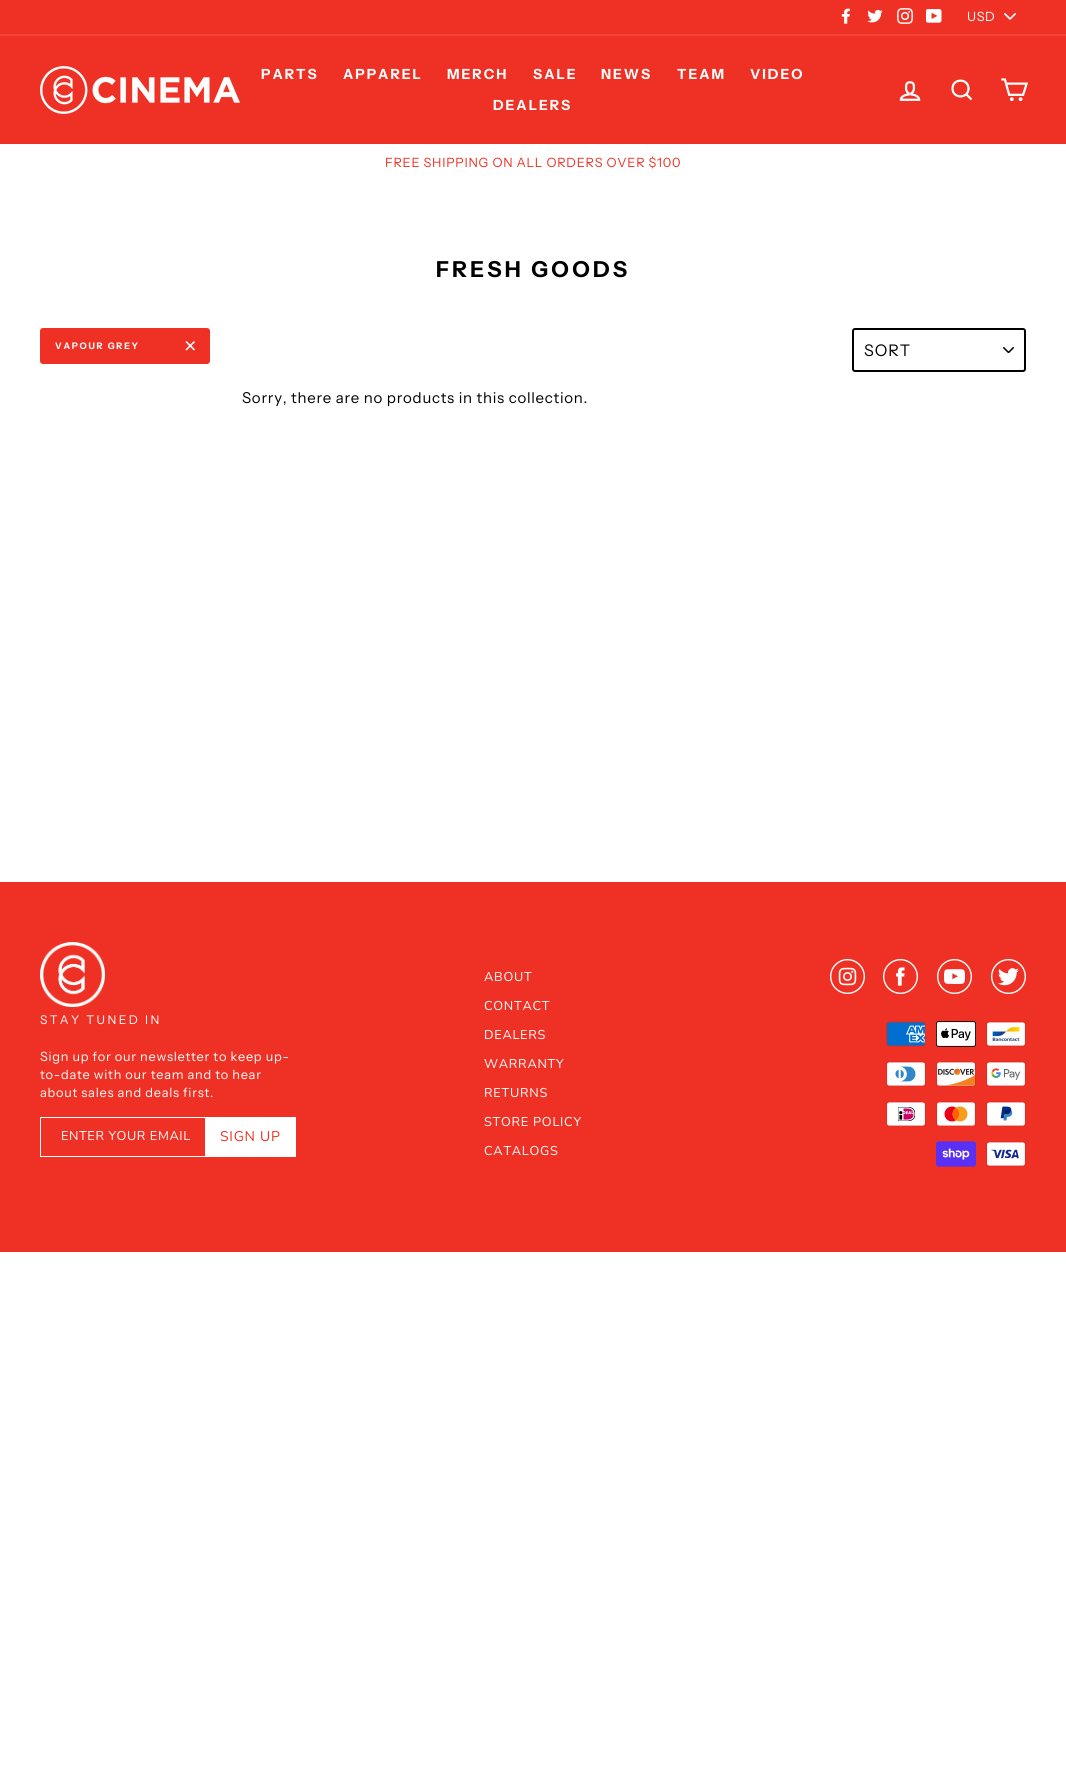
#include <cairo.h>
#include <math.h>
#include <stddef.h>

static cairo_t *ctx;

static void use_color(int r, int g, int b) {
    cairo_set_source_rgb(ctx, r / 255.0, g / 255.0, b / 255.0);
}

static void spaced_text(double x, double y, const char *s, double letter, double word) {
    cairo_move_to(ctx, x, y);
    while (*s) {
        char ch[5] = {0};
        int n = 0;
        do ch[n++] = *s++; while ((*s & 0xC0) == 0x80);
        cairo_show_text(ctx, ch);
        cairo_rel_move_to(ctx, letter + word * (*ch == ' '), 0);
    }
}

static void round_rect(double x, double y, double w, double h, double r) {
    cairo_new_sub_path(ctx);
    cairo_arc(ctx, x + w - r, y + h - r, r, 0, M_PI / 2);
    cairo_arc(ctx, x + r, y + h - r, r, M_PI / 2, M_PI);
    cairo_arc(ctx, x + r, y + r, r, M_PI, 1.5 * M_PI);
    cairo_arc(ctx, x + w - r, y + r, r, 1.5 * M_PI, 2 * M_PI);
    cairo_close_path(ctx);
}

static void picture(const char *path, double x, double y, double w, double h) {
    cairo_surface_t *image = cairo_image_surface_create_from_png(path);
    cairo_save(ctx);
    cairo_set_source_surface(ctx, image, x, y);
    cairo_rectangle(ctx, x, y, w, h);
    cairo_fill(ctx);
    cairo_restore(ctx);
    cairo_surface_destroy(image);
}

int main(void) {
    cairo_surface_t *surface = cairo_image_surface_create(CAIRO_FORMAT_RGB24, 1066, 1787);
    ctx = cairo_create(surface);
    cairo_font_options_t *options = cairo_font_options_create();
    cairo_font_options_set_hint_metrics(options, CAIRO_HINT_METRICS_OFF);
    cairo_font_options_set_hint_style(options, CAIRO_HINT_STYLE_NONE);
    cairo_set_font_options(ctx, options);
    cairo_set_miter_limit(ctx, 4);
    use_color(255, 255, 255);
    cairo_paint(ctx);
    use_color(238, 49, 36);
    cairo_rectangle(ctx, 0, 0, 1066, 34);
    cairo_fill(ctx);
    picture("img1.png", 841, 8, 9, 16);
    picture("img2.png", 867, 9, 16, 14);
    picture("img3.png", 897, 8, 16, 16);
    picture("img4.png", 926, 9, 16, 14);
    picture("img5.png", 1004, 13, 12, 7);
    cairo_select_font_face(ctx, "Instrument Sans", CAIRO_FONT_SLANT_NORMAL, CAIRO_FONT_WEIGHT_NORMAL);
    cairo_set_font_size(ctx, 12.75);
    use_color(255, 255, 255);
    spaced_text(967, 21, "USD", 0.6, 0);
    use_color(238, 49, 36);
    cairo_rectangle(ctx, 0, 36, 1066, 108);
    cairo_fill(ctx);
    use_color(240, 70, 58);
    cairo_rectangle(ctx, 0, 34, 1066, 2);
    cairo_fill(ctx);
    picture("img6.png", 40, 66, 200, 48);
    cairo_select_font_face(ctx, "Instrument Sans", CAIRO_FONT_SLANT_NORMAL, CAIRO_FONT_WEIGHT_BOLD);
    cairo_set_font_size(ctx, 14);
    use_color(255, 255, 255);
    spaced_text(261, 79, "PARTS", 2, 0);
    spaced_text(343, 79, "APPAREL", 2, 0);
    spaced_text(447, 79, "MERCH", 2, 0);
    spaced_text(533, 79, "SALE", 2, 0);
    spaced_text(601, 79, "NEWS", 2, 0);
    spaced_text(677, 79, "TEAM", 2, 0);
    spaced_text(750, 79, "VIDEO", 2, 0);
    spaced_text(493, 110, "DEALERS", 2, 0);
    picture("img7.png", 899, 81, 22, 20);
    cairo_new_path(ctx);
    cairo_move_to(ctx, 968.5, 88.5);
    cairo_curve_to(ctx, 968.5, 99, 952.5, 99, 952.5, 88.5);
    cairo_curve_to(ctx, 952.5, 78, 968.5, 78, 968.5, 88.5);
    cairo_close_path(ctx);
    cairo_move_to(ctx, 971.5, 99.5);
    cairo_line_to(ctx, 966.5, 94.5);
    cairo_set_line_width(ctx, 2.2);
    cairo_stroke(ctx);
    picture("img8.png", 1001, 78, 27, 24);
    cairo_select_font_face(ctx, "Instrument Sans", CAIRO_FONT_SLANT_NORMAL, CAIRO_FONT_WEIGHT_NORMAL);
    cairo_set_font_size(ctx, 12.75);
    use_color(238, 49, 36);
    spaced_text(385, 167, "FREE SHIPPING ON ALL ORDERS OVER $100", 0.75, 0);
    cairo_select_font_face(ctx, "Instrument Sans", CAIRO_FONT_SLANT_NORMAL, CAIRO_FONT_WEIGHT_BOLD);
    cairo_set_font_size(ctx, 22);
    use_color(0, 0, 0);
    spaced_text(436, 277, "FRESH GOODS", 3.25, 0);
    use_color(238, 49, 36);
    round_rect(40, 328, 170, 36, 3);
    cairo_fill(ctx);
    cairo_set_font_size(ctx, 9);
    use_color(255, 255, 255);
    spaced_text(55, 349, "VAPOUR GREY", 1.75, 0);
    cairo_new_path(ctx);
    cairo_move_to(ctx, 186, 341.5);
    cairo_line_to(ctx, 194.5, 350);
    cairo_move_to(ctx, 194.5, 341.5);
    cairo_line_to(ctx, 186, 350);
    cairo_set_line_width(ctx, 1.6);
    cairo_stroke(ctx);
    picture("img9.png", 1003, 347, 11, 6);
    round_rect(853, 329, 172, 42, 2);
    use_color(0, 0, 0);
    cairo_set_line_width(ctx, 2);
    cairo_stroke(ctx);
    cairo_select_font_face(ctx, "Instrument Sans", CAIRO_FONT_SLANT_NORMAL, CAIRO_FONT_WEIGHT_NORMAL);
    cairo_set_font_size(ctx, 16);
    spaced_text(864, 356, "SORT", 1, 0);
    cairo_set_font_size(ctx, 15);
    spaced_text(242, 403, "Sorry, there are no products in this collection.", 0.75, 0);
    use_color(238, 49, 36);
    cairo_rectangle(ctx, 0, 882, 1066, 370);
    cairo_fill(ctx);
    picture("img10.png", 40, 942, 65, 65);
    cairo_set_font_size(ctx, 12);
    use_color(255, 255, 255);
    spaced_text(40, 1024, "STAY TUNED IN", 2.4, 0);
    cairo_set_font_size(ctx, 12.75);
    spaced_text(40, 1061, "Sign up for our newsletter to keep up-", 0.75, 0);
    spaced_text(40, 1079, "to-date with our team and to hear", 0.75, 0);
    spaced_text(40, 1097, "about sales and deals first.", 0.75, 0);
    cairo_rectangle(ctx, 40.5, 1117.5, 255, 39);
    cairo_set_line_width(ctx, 1);
    cairo_stroke(ctx);
    cairo_select_font_face(ctx, "Nunito Sans", CAIRO_FONT_SLANT_NORMAL, CAIRO_FONT_WEIGHT_NORMAL);
    spaced_text(61, 1140, "ENTER YOUR EMAIL", 0.6, 0);
    cairo_rectangle(ctx, 205, 1118, 90, 38);
    cairo_fill(ctx);
    cairo_set_font_size(ctx, 14);
    use_color(238, 49, 36);
    spaced_text(220, 1141, "SIGN UP", 0.75, 0);
    cairo_set_font_size(ctx, 12.75);
    use_color(255, 255, 255);
    spaced_text(484, 981, "ABOUT", 0.75, 0);
    spaced_text(484, 1010, "CONTACT", 0.75, 0);
    spaced_text(484, 1039, "DEALERS", 0.75, 0);
    spaced_text(484, 1068, "WARRANTY", 0.75, 0);
    spaced_text(484, 1097, "RETURNS", 0.75, 0);
    spaced_text(484, 1126, "STORE POLICY", 0.75, 0);
    spaced_text(484, 1155, "CATALOGS", 0.75, 0);
    picture("img11.png", 830, 959, 35, 35);
    picture("img12.png", 883, 959, 35, 35);
    picture("img13.png", 937, 959, 35, 35);
    picture("img14.png", 991, 959, 35, 35);
    picture("img15.png", 886, 1021, 40, 26);
    picture("img16.png", 936, 1021, 40, 26);
    picture("img17.png", 986, 1021, 40, 26);
    picture("img18.png", 886, 1061, 40, 26);
    picture("img19.png", 936, 1061, 40, 26);
    picture("img20.png", 986, 1061, 40, 26);
    picture("img21.png", 886, 1101, 40, 26);
    picture("img22.png", 936, 1101, 40, 26);
    picture("img23.png", 986, 1101, 40, 26);
    picture("img24.png", 936, 1141, 40, 26);
    picture("img25.png", 986, 1141, 40, 26);
    cairo_surface_write_to_png(surface, "result.png");
    cairo_font_options_destroy(options);
    cairo_destroy(ctx);
    cairo_surface_destroy(surface);
    return 0;
}
